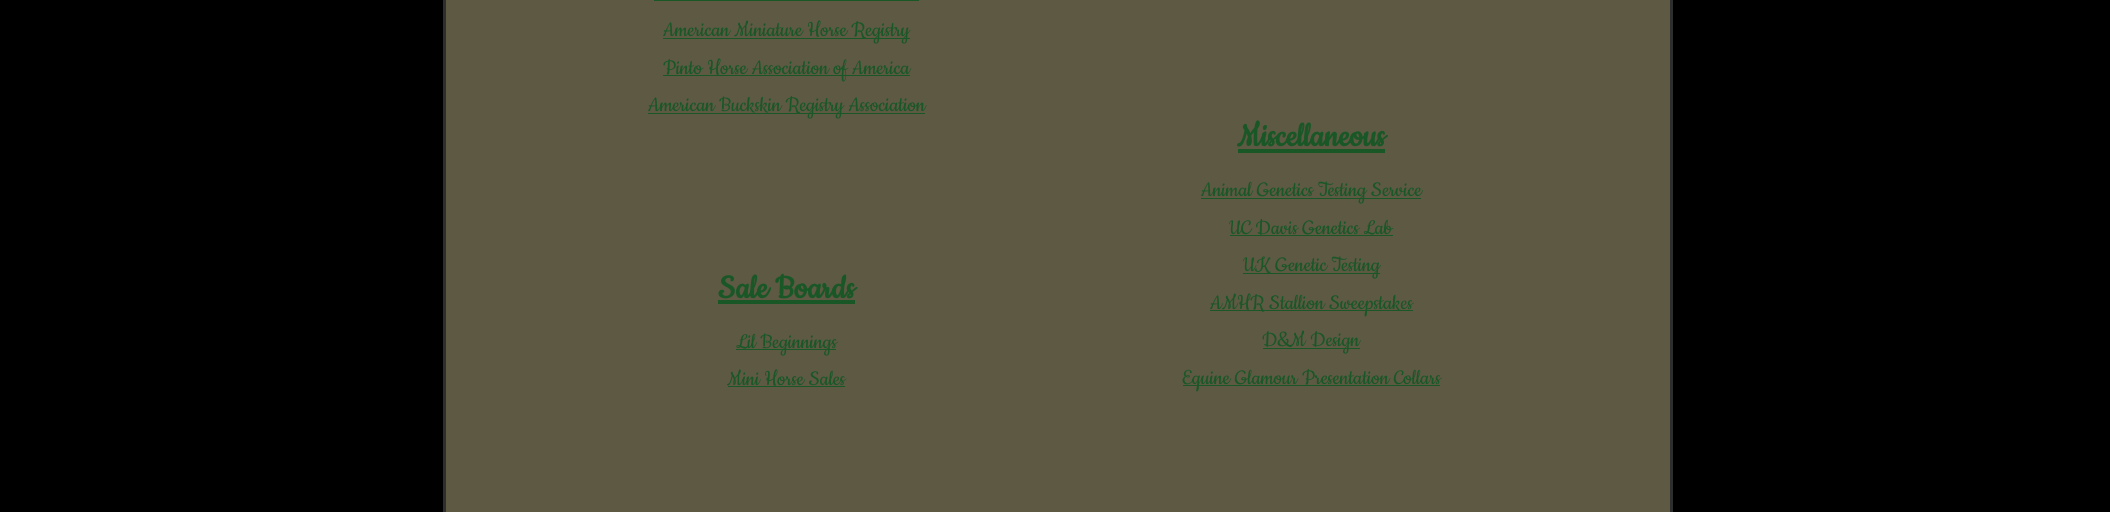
#include <cairo.h>
#include <math.h>
#include <stddef.h>

static cairo_t *ctx;

static void use_color(int r, int g, int b) {
    cairo_set_source_rgb(ctx, r / 255.0, g / 255.0, b / 255.0);
}

int main(void) {
    cairo_surface_t *surface = cairo_image_surface_create(CAIRO_FORMAT_RGB24, 2110, 512);
    ctx = cairo_create(surface);
    cairo_font_options_t *options = cairo_font_options_create();
    cairo_font_options_set_hint_metrics(options, CAIRO_HINT_METRICS_OFF);
    cairo_font_options_set_hint_style(options, CAIRO_HINT_STYLE_NONE);
    cairo_set_font_options(ctx, options);
    cairo_set_miter_limit(ctx, 4);
    use_color(0, 0, 0);
    cairo_paint(ctx);
    use_color(93, 89, 67);
    cairo_rectangle(ctx, 444.5, -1.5, 1227, 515);
    cairo_fill_preserve(ctx);
    use_color(47, 46, 46);
    cairo_set_line_width(ctx, 3);
    cairo_stroke(ctx);
    use_color(26, 87, 39);
    cairo_rectangle(ctx, 654, 0, 265, 1);
    cairo_fill(ctx);
    cairo_rectangle(ctx, 663, 38, 247, 1);
    cairo_fill(ctx);
    cairo_select_font_face(ctx, "Cookie", CAIRO_FONT_SLANT_NORMAL, CAIRO_FONT_WEIGHT_NORMAL);
    cairo_set_font_size(ctx, 23.75);
    cairo_move_to(ctx, 663, 36);
    cairo_show_text(ctx, "American Miniature Horse Registry");
    cairo_rectangle(ctx, 663, 75, 247, 1);
    cairo_fill(ctx);
    cairo_move_to(ctx, 663, 74);
    cairo_show_text(ctx, "Pinto Horse Association of America");
    cairo_rectangle(ctx, 648, 113, 277, 1);
    cairo_fill(ctx);
    cairo_move_to(ctx, 648, 111);
    cairo_show_text(ctx, "American Buckskin Registry Association");
    cairo_select_font_face(ctx, "Cookie", CAIRO_FONT_SLANT_NORMAL, CAIRO_FONT_WEIGHT_BOLD);
    cairo_set_font_size(ctx, 37.5);
    cairo_move_to(ctx, 718, 298);
    cairo_show_text(ctx, "Sale Boards");
    cairo_rectangle(ctx, 718, 300, 137, 4);
    cairo_fill(ctx);
    cairo_rectangle(ctx, 736, 349, 100, 1);
    cairo_fill(ctx);
    cairo_select_font_face(ctx, "Cookie", CAIRO_FONT_SLANT_NORMAL, CAIRO_FONT_WEIGHT_NORMAL);
    cairo_set_font_size(ctx, 23.75);
    cairo_move_to(ctx, 736, 348);
    cairo_show_text(ctx, "Lil Beginnings");
    cairo_move_to(ctx, 727, 385);
    cairo_show_text(ctx, "Mini Horse Sales");
    cairo_rectangle(ctx, 728, 386, 117, 1);
    cairo_fill(ctx);
    cairo_select_font_face(ctx, "Cookie", CAIRO_FONT_SLANT_NORMAL, CAIRO_FONT_WEIGHT_BOLD);
    cairo_set_font_size(ctx, 37.5);
    cairo_move_to(ctx, 1237, 146);
    cairo_show_text(ctx, "Miscellaneous");
    cairo_rectangle(ctx, 1238, 149, 147, 4);
    cairo_fill(ctx);
    cairo_rectangle(ctx, 1201, 198, 220, 1);
    cairo_fill(ctx);
    cairo_select_font_face(ctx, "Cookie", CAIRO_FONT_SLANT_NORMAL, CAIRO_FONT_WEIGHT_NORMAL);
    cairo_set_font_size(ctx, 23.75);
    cairo_move_to(ctx, 1201, 196);
    cairo_show_text(ctx, "Animal Genetics Testing Service");
    cairo_move_to(ctx, 1229, 234);
    cairo_show_text(ctx, "UC Davis Genetics Lab");
    cairo_rectangle(ctx, 1230, 235, 163, 1);
    cairo_fill(ctx);
    cairo_rectangle(ctx, 1243, 273, 137, 1);
    cairo_fill(ctx);
    cairo_move_to(ctx, 1243, 271);
    cairo_show_text(ctx, "UK Genetic Testing");
    cairo_rectangle(ctx, 1210, 310, 203, 1);
    cairo_fill(ctx);
    cairo_move_to(ctx, 1210, 309);
    cairo_show_text(ctx, "AMHR Stallion Sweepstakes");
    cairo_rectangle(ctx, 1263, 348, 97, 1);
    cairo_fill(ctx);
    cairo_move_to(ctx, 1262, 346);
    cairo_show_text(ctx, "D&M Design");
    cairo_rectangle(ctx, 1183, 385, 257, 1);
    cairo_fill(ctx);
    cairo_move_to(ctx, 1182, 384);
    cairo_show_text(ctx, "Equine Glamour Presentation Collars");
    cairo_surface_write_to_png(surface, "result.png");
    cairo_font_options_destroy(options);
    cairo_destroy(ctx);
    cairo_surface_destroy(surface);
    return 0;
}
